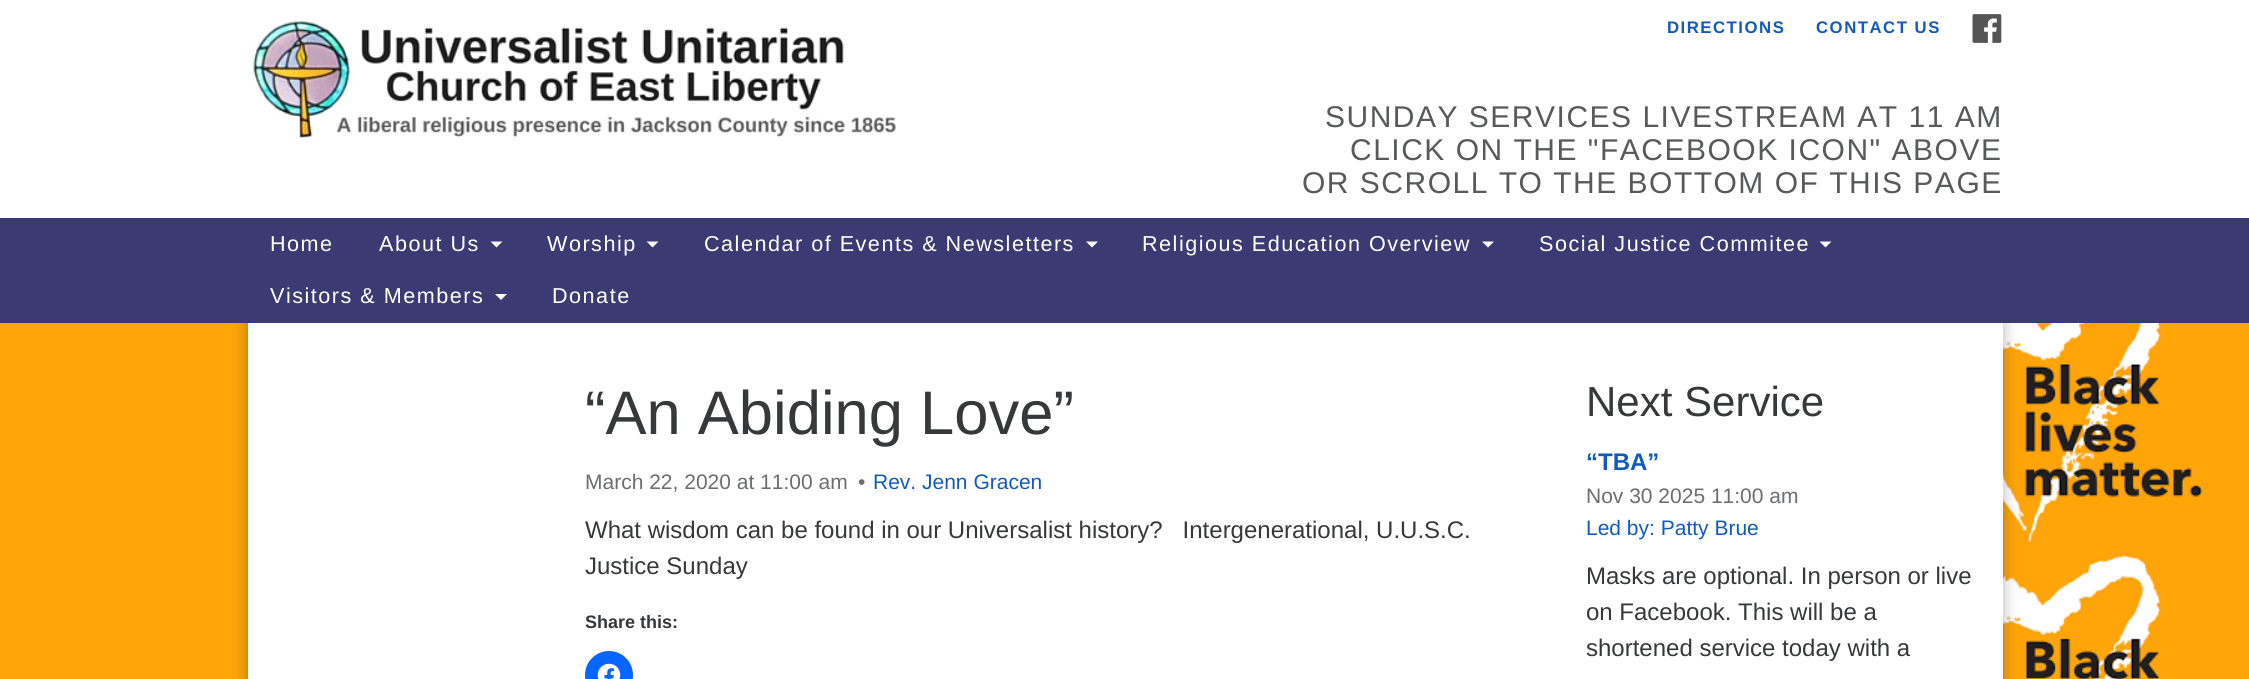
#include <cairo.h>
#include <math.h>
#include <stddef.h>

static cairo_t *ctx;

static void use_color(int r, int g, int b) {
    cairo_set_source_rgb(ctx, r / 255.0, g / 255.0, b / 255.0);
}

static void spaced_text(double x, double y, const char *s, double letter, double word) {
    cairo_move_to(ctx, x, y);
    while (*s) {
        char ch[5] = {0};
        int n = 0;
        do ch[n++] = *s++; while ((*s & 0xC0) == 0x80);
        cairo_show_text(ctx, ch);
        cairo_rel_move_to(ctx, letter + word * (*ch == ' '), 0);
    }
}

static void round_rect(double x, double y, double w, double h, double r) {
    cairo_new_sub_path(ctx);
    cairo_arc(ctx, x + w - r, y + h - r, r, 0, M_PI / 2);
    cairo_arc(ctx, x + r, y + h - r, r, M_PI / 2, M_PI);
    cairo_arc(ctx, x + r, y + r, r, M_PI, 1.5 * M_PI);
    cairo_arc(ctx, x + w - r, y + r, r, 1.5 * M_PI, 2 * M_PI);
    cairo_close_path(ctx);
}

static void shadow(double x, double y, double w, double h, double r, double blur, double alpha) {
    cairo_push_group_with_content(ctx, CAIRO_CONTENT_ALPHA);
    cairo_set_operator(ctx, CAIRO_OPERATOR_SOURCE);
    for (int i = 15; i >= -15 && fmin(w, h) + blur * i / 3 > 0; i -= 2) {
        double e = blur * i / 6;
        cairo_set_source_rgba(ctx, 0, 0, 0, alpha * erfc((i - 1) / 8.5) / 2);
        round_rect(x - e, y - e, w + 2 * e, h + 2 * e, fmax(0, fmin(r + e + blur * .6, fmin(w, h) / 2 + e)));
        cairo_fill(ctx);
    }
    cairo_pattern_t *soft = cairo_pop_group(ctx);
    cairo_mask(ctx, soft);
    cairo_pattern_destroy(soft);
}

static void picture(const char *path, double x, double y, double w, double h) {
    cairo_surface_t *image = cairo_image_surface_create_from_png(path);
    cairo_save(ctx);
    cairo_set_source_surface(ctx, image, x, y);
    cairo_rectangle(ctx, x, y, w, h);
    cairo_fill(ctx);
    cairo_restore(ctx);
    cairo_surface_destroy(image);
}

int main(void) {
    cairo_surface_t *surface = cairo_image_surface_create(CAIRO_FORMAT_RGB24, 2249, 679);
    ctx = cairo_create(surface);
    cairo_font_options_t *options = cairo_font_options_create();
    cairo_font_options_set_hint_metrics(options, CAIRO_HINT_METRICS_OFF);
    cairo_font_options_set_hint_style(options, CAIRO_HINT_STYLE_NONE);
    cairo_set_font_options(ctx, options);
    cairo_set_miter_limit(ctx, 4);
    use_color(255, 255, 255);
    cairo_paint(ctx);
    picture("img1.png", 0, 323, 2249, 356);
    picture("img2.png", 252, 21, 644, 118);
    cairo_select_font_face(ctx, "Liberation Sans", CAIRO_FONT_SLANT_NORMAL, CAIRO_FONT_WEIGHT_BOLD);
    cairo_set_font_size(ctx, 16.75);
    use_color(18, 90, 187);
    spaced_text(1667, 33, "DIRECTIONS", 1.5, 0);
    spaced_text(1816, 33, "CONTACT US", 1.5, 0);
    picture("img3.png", 1972, 14, 30, 29);
    cairo_select_font_face(ctx, "Liberation Sans", CAIRO_FONT_SLANT_NORMAL, CAIRO_FONT_WEIGHT_NORMAL);
    cairo_set_font_size(ctx, 30);
    use_color(88, 89, 91);
    spaced_text(1325, 127, "SUNDAY SERVICES LIVESTREAM AT 11 AM", 1.5, 0);
    spaced_text(1350, 160, "CLICK ON THE \"FACEBOOK ICON\" ABOVE", 1.5, 0);
    spaced_text(1302, 193, "OR SCROLL TO THE BOTTOM OF THIS PAGE", 1.5, 0);
    use_color(0, 0, 0);
    shadow(248, 323, 1755, 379, 0, 7.5, 0.3);
    use_color(60, 58, 115);
    cairo_rectangle(ctx, 0, 218, 2249, 105);
    cairo_fill(ctx);
    cairo_set_font_size(ctx, 21.6);
    use_color(255, 255, 255);
    spaced_text(270, 251, "Home", 1.5, 0);
    spaced_text(379, 251, "About Us", 1.5, 0);
    cairo_new_path(ctx);
    cairo_move_to(ctx, 490.5, 241.5);
    cairo_line_to(ctx, 502.5, 241.5);
    cairo_line_to(ctx, 496.5, 247.5);
    cairo_close_path(ctx);
    cairo_fill(ctx);
    spaced_text(547, 251, "Worship", 1.5, 0);
    cairo_new_path(ctx);
    cairo_move_to(ctx, 646.5, 241.5);
    cairo_line_to(ctx, 658.5, 241.5);
    cairo_line_to(ctx, 652.5, 247.5);
    cairo_close_path(ctx);
    cairo_fill(ctx);
    spaced_text(704, 251, "Calendar of Events & Newsletters", 1.5, 0);
    cairo_new_path(ctx);
    cairo_move_to(ctx, 1086, 241.5);
    cairo_line_to(ctx, 1098, 241.5);
    cairo_line_to(ctx, 1092, 247.5);
    cairo_close_path(ctx);
    cairo_fill(ctx);
    spaced_text(1142, 251, "Religious Education Overview", 1.5, 0);
    cairo_new_path(ctx);
    cairo_move_to(ctx, 1482, 241.5);
    cairo_line_to(ctx, 1494, 241.5);
    cairo_line_to(ctx, 1488, 247.5);
    cairo_close_path(ctx);
    cairo_fill(ctx);
    spaced_text(1539, 251, "Social Justice Commitee", 1.5, 0);
    cairo_new_path(ctx);
    cairo_move_to(ctx, 1819.5, 241.5);
    cairo_line_to(ctx, 1831.5, 241.5);
    cairo_line_to(ctx, 1825.5, 247.5);
    cairo_close_path(ctx);
    cairo_fill(ctx);
    spaced_text(270, 303, "Visitors & Members", 1.5, 0);
    cairo_new_path(ctx);
    cairo_move_to(ctx, 495, 294);
    cairo_line_to(ctx, 507, 294);
    cairo_line_to(ctx, 501, 300);
    cairo_close_path(ctx);
    cairo_fill(ctx);
    spaced_text(552, 303, "Donate", 1.5, 0);
    cairo_rectangle(ctx, 248, 323, 1755, 356);
    cairo_fill(ctx);
    cairo_set_font_size(ctx, 61.5);
    use_color(55, 56, 57);
    cairo_move_to(ctx, 585, 434);
    cairo_show_text(ctx, "“An Abiding Love”");
    cairo_set_font_size(ctx, 21);
    use_color(108, 109, 111);
    cairo_move_to(ctx, 585, 489);
    cairo_show_text(ctx, "March 22, 2020 at 11:00 am");
    cairo_move_to(ctx, 858, 489);
    cairo_show_text(ctx, "•");
    use_color(18, 90, 187);
    cairo_move_to(ctx, 873, 489);
    cairo_show_text(ctx, "Rev. Jenn Gracen");
    cairo_set_font_size(ctx, 24);
    use_color(55, 56, 57);
    cairo_move_to(ctx, 585, 538);
    cairo_show_text(ctx, "What wisdom can be found in our Universalist history?   Intergenerational, U.U.S.C.");
    cairo_move_to(ctx, 585, 574);
    cairo_show_text(ctx, "Justice Sunday");
    cairo_select_font_face(ctx, "Liberation Sans", CAIRO_FONT_SLANT_NORMAL, CAIRO_FONT_WEIGHT_BOLD);
    cairo_set_font_size(ctx, 18);
    cairo_move_to(ctx, 585, 628);
    cairo_show_text(ctx, "Share this:");
    use_color(8, 102, 255);
    cairo_new_path(ctx);
    cairo_arc(ctx, 609, 675, 24, 0, 2 * M_PI);
    cairo_fill(ctx);
    picture("img4.png", 597, 663, 24, 16);
    cairo_select_font_face(ctx, "Liberation Sans", CAIRO_FONT_SLANT_NORMAL, CAIRO_FONT_WEIGHT_NORMAL);
    cairo_set_font_size(ctx, 42);
    use_color(55, 56, 57);
    cairo_move_to(ctx, 1586, 416);
    cairo_show_text(ctx, "Next Service");
    cairo_select_font_face(ctx, "Liberation Sans", CAIRO_FONT_SLANT_NORMAL, CAIRO_FONT_WEIGHT_BOLD);
    cairo_set_font_size(ctx, 24);
    use_color(18, 90, 187);
    cairo_move_to(ctx, 1586, 470);
    cairo_show_text(ctx, "“TBA”");
    cairo_select_font_face(ctx, "Liberation Sans", CAIRO_FONT_SLANT_NORMAL, CAIRO_FONT_WEIGHT_NORMAL);
    cairo_set_font_size(ctx, 21);
    use_color(108, 109, 111);
    cairo_move_to(ctx, 1586, 503);
    cairo_show_text(ctx, "Nov 30 2025 11:00 am");
    use_color(18, 90, 187);
    cairo_move_to(ctx, 1586, 535);
    cairo_show_text(ctx, "Led by: Patty Brue");
    cairo_set_font_size(ctx, 24);
    use_color(55, 56, 57);
    cairo_move_to(ctx, 1586, 584);
    cairo_show_text(ctx, "Masks are optional. In person or live");
    cairo_move_to(ctx, 1586, 620);
    cairo_show_text(ctx, "on Facebook. This will be a");
    cairo_move_to(ctx, 1586, 656);
    cairo_show_text(ctx, "shortened service today with a");
    cairo_surface_write_to_png(surface, "result.png");
    cairo_font_options_destroy(options);
    cairo_destroy(ctx);
    cairo_surface_destroy(surface);
    return 0;
}
